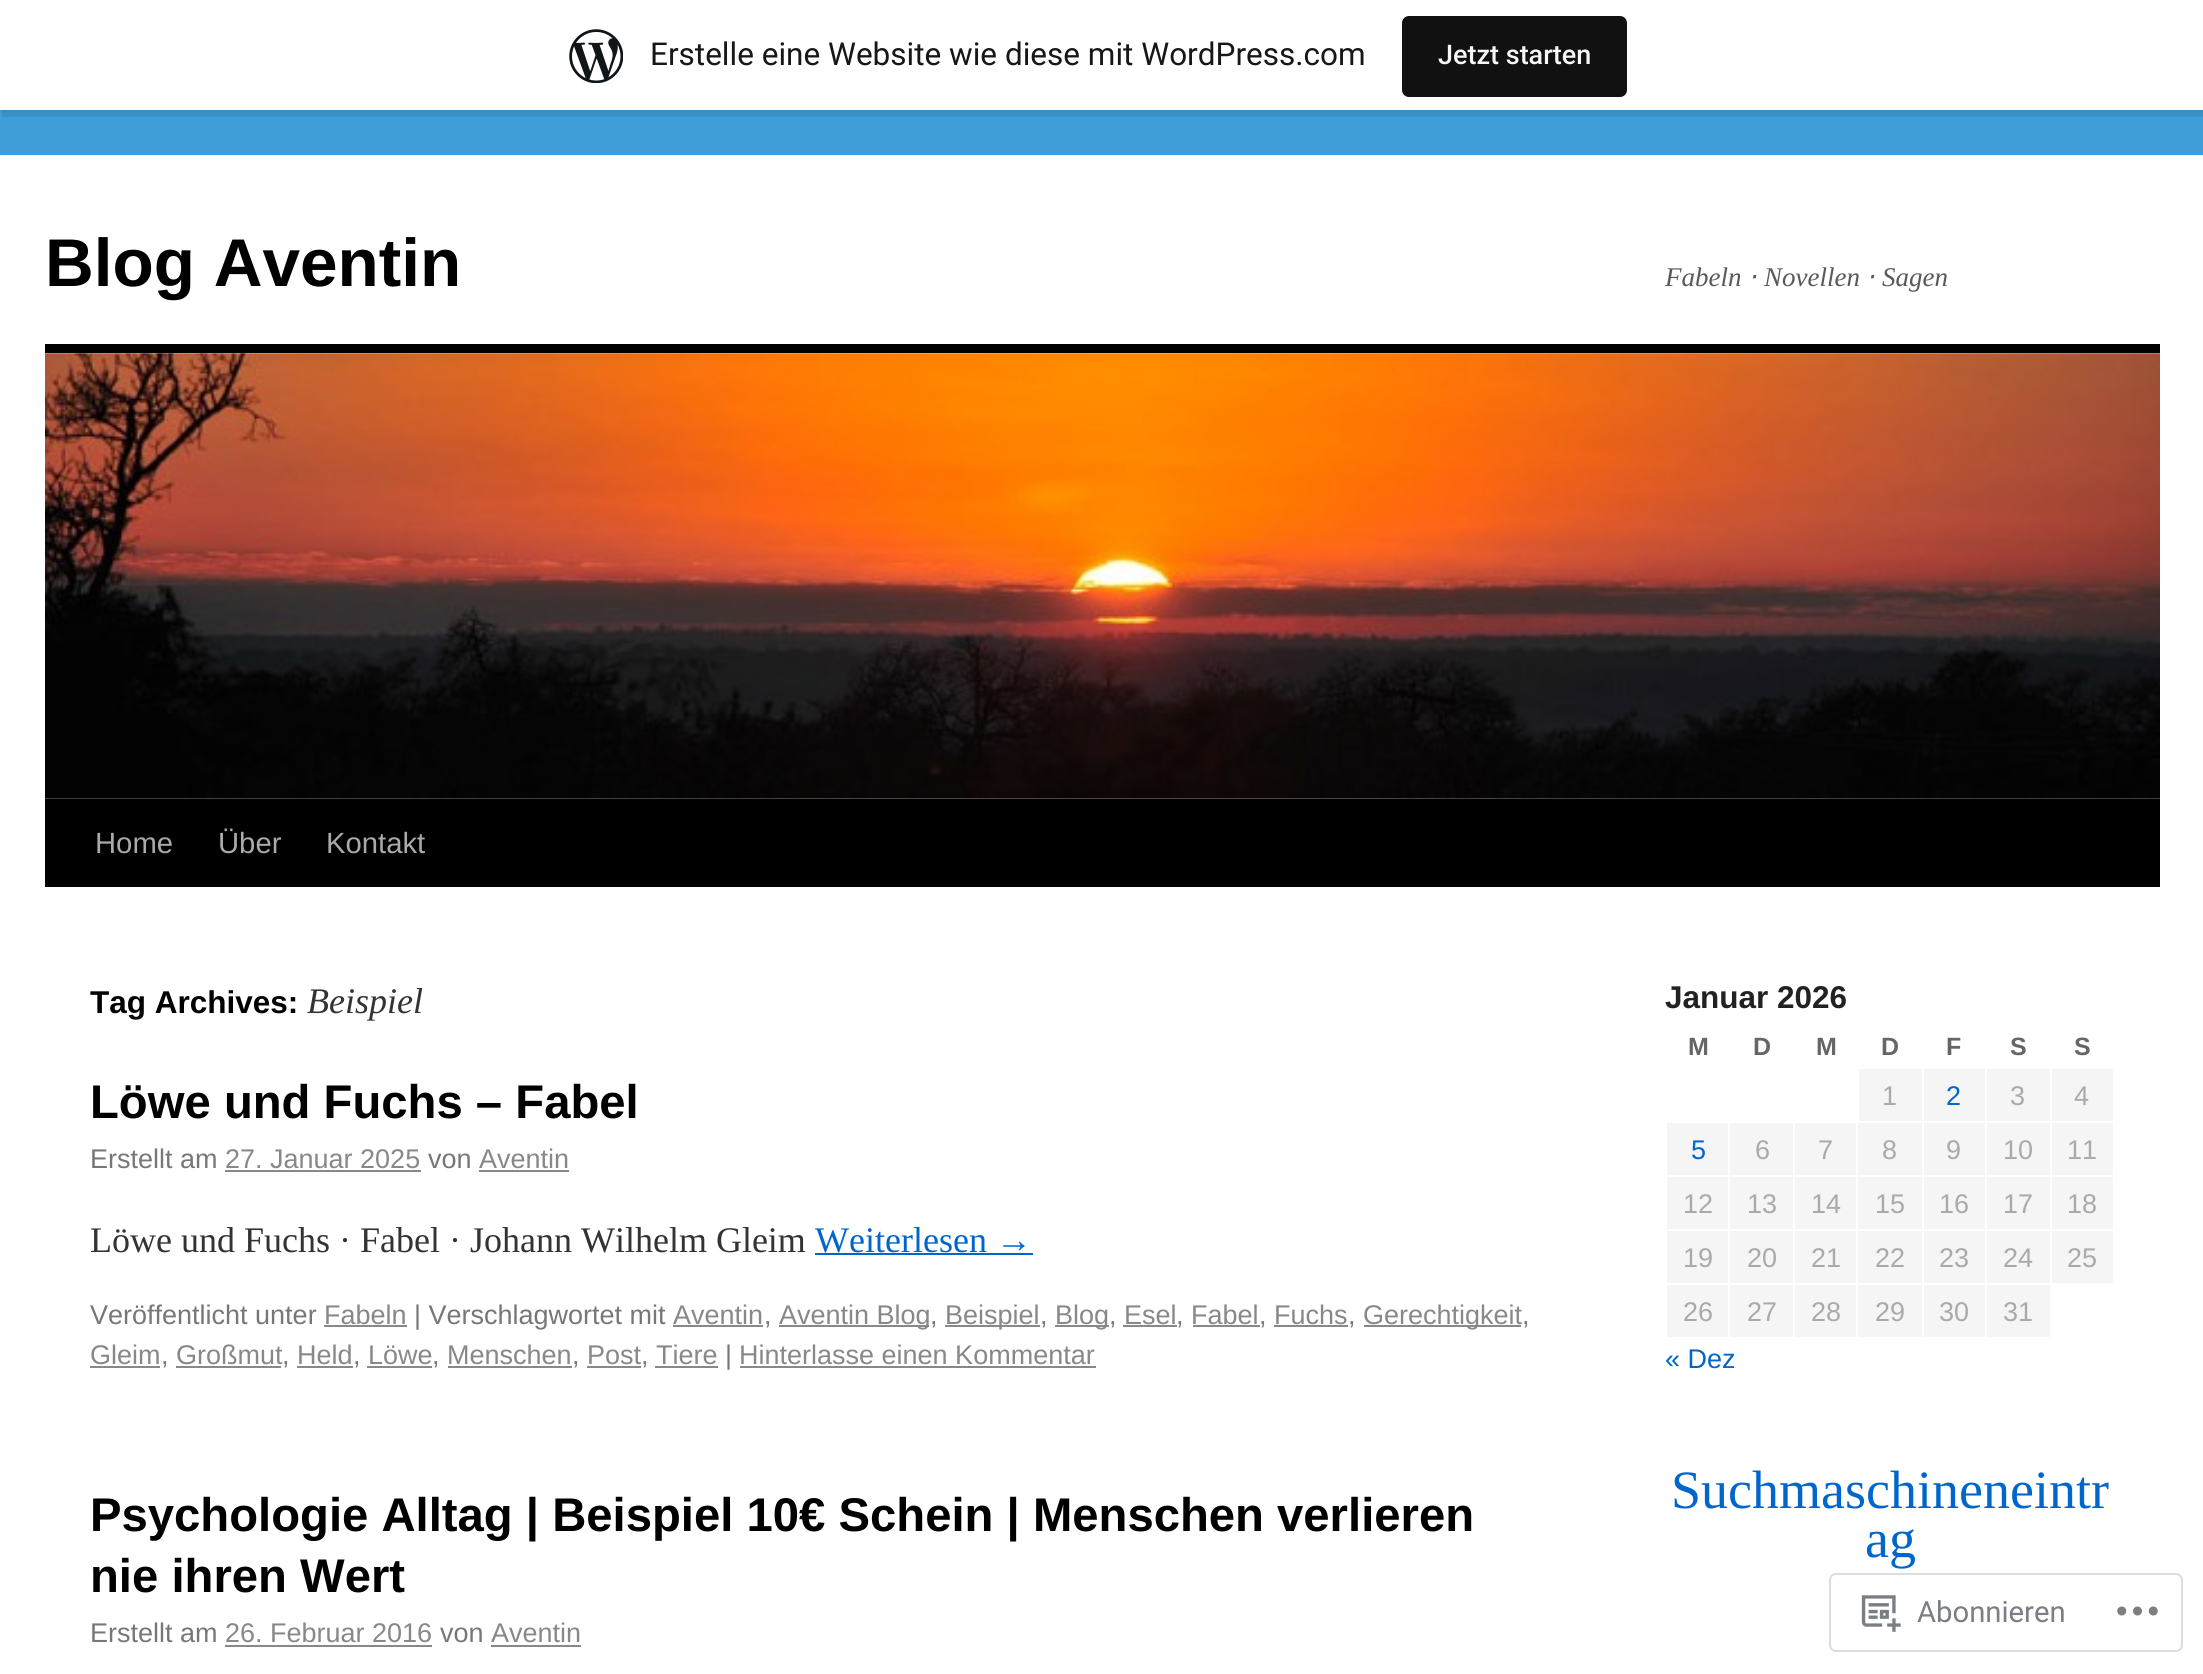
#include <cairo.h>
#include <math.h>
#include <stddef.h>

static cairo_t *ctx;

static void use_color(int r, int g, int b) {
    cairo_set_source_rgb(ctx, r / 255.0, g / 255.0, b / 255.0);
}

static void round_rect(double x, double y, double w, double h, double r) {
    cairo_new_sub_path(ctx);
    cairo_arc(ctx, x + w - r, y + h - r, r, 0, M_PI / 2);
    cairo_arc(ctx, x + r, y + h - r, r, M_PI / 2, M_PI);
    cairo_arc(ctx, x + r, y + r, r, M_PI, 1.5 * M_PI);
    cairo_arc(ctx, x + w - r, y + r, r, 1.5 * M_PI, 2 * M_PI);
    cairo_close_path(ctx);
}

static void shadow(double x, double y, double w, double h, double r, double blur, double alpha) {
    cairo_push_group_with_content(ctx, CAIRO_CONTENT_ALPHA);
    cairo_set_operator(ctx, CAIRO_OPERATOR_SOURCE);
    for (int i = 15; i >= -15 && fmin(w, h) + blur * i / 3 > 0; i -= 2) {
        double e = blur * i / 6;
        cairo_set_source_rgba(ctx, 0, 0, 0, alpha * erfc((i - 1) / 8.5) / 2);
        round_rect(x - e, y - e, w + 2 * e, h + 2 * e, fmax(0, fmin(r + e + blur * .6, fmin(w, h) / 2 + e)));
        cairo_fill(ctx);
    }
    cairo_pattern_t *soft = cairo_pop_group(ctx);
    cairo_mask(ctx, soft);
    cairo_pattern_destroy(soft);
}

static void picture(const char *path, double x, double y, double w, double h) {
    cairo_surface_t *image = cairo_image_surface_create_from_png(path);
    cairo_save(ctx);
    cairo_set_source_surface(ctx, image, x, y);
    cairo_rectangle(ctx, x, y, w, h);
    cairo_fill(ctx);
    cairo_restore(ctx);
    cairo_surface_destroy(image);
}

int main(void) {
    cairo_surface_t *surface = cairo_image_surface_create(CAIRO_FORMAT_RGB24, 2203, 1674);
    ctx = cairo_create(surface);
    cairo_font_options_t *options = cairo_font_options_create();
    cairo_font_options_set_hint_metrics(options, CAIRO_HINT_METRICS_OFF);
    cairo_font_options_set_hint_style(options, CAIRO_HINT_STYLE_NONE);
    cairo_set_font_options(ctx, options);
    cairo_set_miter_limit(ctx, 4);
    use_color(63, 158, 217);
    cairo_paint(ctx);
    use_color(0, 0, 0);
    shadow(0, 2, 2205, 111, 0, 2, 0.05);
    cairo_set_source_rgba(ctx, 0, 0, 0, 0.08);
    cairo_new_path(ctx);
    cairo_move_to(ctx, 2, 110);
    cairo_line_to(ctx, 2, 117);
    cairo_line_to(ctx, 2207, 117);
    cairo_line_to(ctx, 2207, 7);
    cairo_line_to(ctx, 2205, 7);
    cairo_line_to(ctx, 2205, 110);
    cairo_close_path(ctx);
    cairo_fill(ctx);
    use_color(255, 255, 255);
    cairo_rectangle(ctx, 0, 0, 2203, 110);
    cairo_fill(ctx);
    picture("img1.png", 569, 29, 54, 54);
    cairo_select_font_face(ctx, "Roboto", CAIRO_FONT_SLANT_NORMAL, CAIRO_FONT_WEIGHT_NORMAL);
    cairo_set_font_size(ctx, 31.5);
    use_color(23, 23, 23);
    cairo_move_to(ctx, 650, 65);
    cairo_show_text(ctx, "Erstelle eine Website wie diese mit WordPress.com");
    use_color(17, 17, 17);
    round_rect(1402, 16, 225, 81, 7);
    cairo_fill(ctx);
    cairo_select_font_face(ctx, "Roboto Medium", CAIRO_FONT_SLANT_NORMAL, CAIRO_FONT_WEIGHT_NORMAL);
    cairo_set_font_size(ctx, 27);
    use_color(246, 247, 247);
    cairo_move_to(ctx, 1438, 64);
    cairo_show_text(ctx, "Jetzt starten");
    use_color(255, 255, 255);
    cairo_rectangle(ctx, 0, 155, 2203, 1519);
    cairo_fill(ctx);
    cairo_select_font_face(ctx, "Liberation Sans", CAIRO_FONT_SLANT_NORMAL, CAIRO_FONT_WEIGHT_BOLD);
    cairo_set_font_size(ctx, 67.5);
    use_color(0, 0, 0);
    cairo_move_to(ctx, 45, 286);
    cairo_show_text(ctx, "Blog Aventin");
    cairo_select_font_face(ctx, "Liberation Serif", CAIRO_FONT_SLANT_ITALIC, CAIRO_FONT_WEIGHT_NORMAL);
    cairo_set_font_size(ctx, 27);
    use_color(89, 89, 89);
    cairo_move_to(ctx, 1665, 286);
    cairo_show_text(ctx, "Fabeln");
    cairo_select_font_face(ctx, "DejaVu Sans", CAIRO_FONT_SLANT_ITALIC, CAIRO_FONT_WEIGHT_NORMAL);
    cairo_move_to(ctx, 1748, 286);
    cairo_show_text(ctx, "⋅");
    cairo_select_font_face(ctx, "Liberation Serif", CAIRO_FONT_SLANT_ITALIC, CAIRO_FONT_WEIGHT_NORMAL);
    cairo_move_to(ctx, 1764, 286);
    cairo_show_text(ctx, "Novellen");
    cairo_select_font_face(ctx, "DejaVu Sans", CAIRO_FONT_SLANT_ITALIC, CAIRO_FONT_WEIGHT_NORMAL);
    cairo_move_to(ctx, 1866, 286);
    cairo_show_text(ctx, "⋅");
    cairo_select_font_face(ctx, "Liberation Serif", CAIRO_FONT_SLANT_ITALIC, CAIRO_FONT_WEIGHT_NORMAL);
    cairo_move_to(ctx, 1882, 286);
    cairo_show_text(ctx, "Sagen");
    use_color(0, 0, 0);
    cairo_rectangle(ctx, 45, 344, 2115, 9);
    cairo_fill(ctx);
    cairo_rectangle(ctx, 45, 799, 2115, 88);
    cairo_fill(ctx);
    picture("img2.png", 45, 353, 2115, 446);
    cairo_select_font_face(ctx, "Liberation Sans", CAIRO_FONT_SLANT_NORMAL, CAIRO_FONT_WEIGHT_NORMAL);
    cairo_set_font_size(ctx, 29.25);
    use_color(170, 170, 170);
    cairo_move_to(ctx, 95, 853);
    cairo_show_text(ctx, "Home");
    cairo_move_to(ctx, 218, 853);
    cairo_show_text(ctx, "Über");
    cairo_move_to(ctx, 326, 853);
    cairo_show_text(ctx, "Kontakt");
    cairo_select_font_face(ctx, "Liberation Sans", CAIRO_FONT_SLANT_NORMAL, CAIRO_FONT_WEIGHT_BOLD);
    cairo_set_font_size(ctx, 31.5);
    use_color(0, 0, 0);
    cairo_move_to(ctx, 90, 1013);
    cairo_show_text(ctx, "Tag Archives:");
    cairo_select_font_face(ctx, "Liberation Serif", CAIRO_FONT_SLANT_ITALIC, CAIRO_FONT_WEIGHT_NORMAL);
    cairo_set_font_size(ctx, 36);
    use_color(51, 51, 51);
    cairo_move_to(ctx, 307, 1013);
    cairo_show_text(ctx, "Beispiel");
    cairo_select_font_face(ctx, "Liberation Sans", CAIRO_FONT_SLANT_NORMAL, CAIRO_FONT_WEIGHT_BOLD);
    cairo_set_font_size(ctx, 47.25);
    use_color(0, 0, 0);
    cairo_move_to(ctx, 90, 1118);
    cairo_show_text(ctx, "Löwe und Fuchs – Fabel");
    cairo_select_font_face(ctx, "Liberation Sans", CAIRO_FONT_SLANT_NORMAL, CAIRO_FONT_WEIGHT_NORMAL);
    cairo_set_font_size(ctx, 27);
    use_color(119, 119, 119);
    cairo_move_to(ctx, 90, 1168);
    cairo_show_text(ctx, "Erstellt am");
    use_color(136, 136, 136);
    cairo_move_to(ctx, 225, 1168);
    cairo_show_text(ctx, "27. Januar 2025");
    cairo_rectangle(ctx, 225, 1170, 196, 2);
    cairo_fill(ctx);
    use_color(119, 119, 119);
    cairo_move_to(ctx, 428, 1168);
    cairo_show_text(ctx, "von");
    use_color(136, 136, 136);
    cairo_move_to(ctx, 479, 1168);
    cairo_show_text(ctx, "Aventin");
    cairo_rectangle(ctx, 479, 1170, 90, 2);
    cairo_fill(ctx);
    cairo_select_font_face(ctx, "Liberation Serif", CAIRO_FONT_SLANT_NORMAL, CAIRO_FONT_WEIGHT_NORMAL);
    cairo_set_font_size(ctx, 36);
    use_color(51, 51, 51);
    cairo_move_to(ctx, 90, 1252);
    cairo_show_text(ctx, "Löwe und Fuchs · Fabel · Johann Wilhelm Gleim");
    use_color(0, 102, 204);
    cairo_move_to(ctx, 815, 1252);
    cairo_show_text(ctx, "Weiterlesen →");
    cairo_rectangle(ctx, 815, 1253, 218, 2);
    cairo_fill(ctx);
    cairo_select_font_face(ctx, "Liberation Sans", CAIRO_FONT_SLANT_NORMAL, CAIRO_FONT_WEIGHT_NORMAL);
    cairo_set_font_size(ctx, 27);
    use_color(119, 119, 119);
    cairo_move_to(ctx, 90, 1324);
    cairo_show_text(ctx, "Veröffentlicht unter");
    use_color(136, 136, 136);
    cairo_move_to(ctx, 324, 1324);
    cairo_show_text(ctx, "Fabeln");
    cairo_rectangle(ctx, 324, 1325, 83, 2);
    cairo_fill(ctx);
    use_color(119, 119, 119);
    cairo_move_to(ctx, 414, 1324);
    cairo_show_text(ctx, "| Verschlagwortet mit");
    use_color(136, 136, 136);
    cairo_move_to(ctx, 673, 1324);
    cairo_show_text(ctx, "Aventin");
    use_color(119, 119, 119);
    cairo_move_to(ctx, 764, 1324);
    cairo_show_text(ctx, ",");
    use_color(136, 136, 136);
    cairo_rectangle(ctx, 673, 1325, 90, 2);
    cairo_fill(ctx);
    cairo_rectangle(ctx, 779, 1325, 150, 2);
    cairo_fill(ctx);
    cairo_move_to(ctx, 779, 1324);
    cairo_show_text(ctx, "Aventin Blog");
    use_color(119, 119, 119);
    cairo_move_to(ctx, 930, 1324);
    cairo_show_text(ctx, ",");
    use_color(136, 136, 136);
    cairo_rectangle(ctx, 945, 1325, 95, 2);
    cairo_fill(ctx);
    cairo_move_to(ctx, 945, 1324);
    cairo_show_text(ctx, "Beispiel");
    use_color(119, 119, 119);
    cairo_move_to(ctx, 1040, 1324);
    cairo_show_text(ctx, ",");
    use_color(136, 136, 136);
    cairo_rectangle(ctx, 1055, 1325, 54, 2);
    cairo_fill(ctx);
    cairo_move_to(ctx, 1055, 1324);
    cairo_show_text(ctx, "Blog");
    use_color(119, 119, 119);
    cairo_move_to(ctx, 1109, 1324);
    cairo_show_text(ctx, ",");
    use_color(136, 136, 136);
    cairo_move_to(ctx, 1124, 1324);
    cairo_show_text(ctx, "Esel");
    use_color(119, 119, 119);
    cairo_move_to(ctx, 1176, 1324);
    cairo_show_text(ctx, ",");
    use_color(136, 136, 136);
    cairo_rectangle(ctx, 1123, 1325, 54, 2);
    cairo_fill(ctx);
    cairo_move_to(ctx, 1191, 1324);
    cairo_show_text(ctx, "Fabel");
    use_color(119, 119, 119);
    cairo_move_to(ctx, 1259, 1324);
    cairo_show_text(ctx, ",");
    use_color(136, 136, 136);
    cairo_rectangle(ctx, 1193, 1325, 67, 2);
    cairo_fill(ctx);
    cairo_move_to(ctx, 1274, 1324);
    cairo_show_text(ctx, "Fuchs");
    use_color(119, 119, 119);
    cairo_move_to(ctx, 1348, 1324);
    cairo_show_text(ctx, ",");
    use_color(136, 136, 136);
    cairo_rectangle(ctx, 1274, 1325, 74, 2);
    cairo_fill(ctx);
    cairo_rectangle(ctx, 1364, 1325, 157, 2);
    cairo_fill(ctx);
    cairo_move_to(ctx, 1363, 1324);
    cairo_show_text(ctx, "Gerechtigkeit");
    use_color(119, 119, 119);
    cairo_move_to(ctx, 1522, 1324);
    cairo_show_text(ctx, ",");
    use_color(136, 136, 136);
    cairo_move_to(ctx, 90, 1364);
    cairo_show_text(ctx, "Gleim");
    use_color(119, 119, 119);
    cairo_move_to(ctx, 161, 1364);
    cairo_show_text(ctx, ",");
    use_color(136, 136, 136);
    cairo_rectangle(ctx, 90, 1366, 70, 2);
    cairo_fill(ctx);
    cairo_move_to(ctx, 176, 1364);
    cairo_show_text(ctx, "Großmut");
    use_color(119, 119, 119);
    cairo_move_to(ctx, 282, 1364);
    cairo_show_text(ctx, ",");
    use_color(136, 136, 136);
    cairo_rectangle(ctx, 176, 1366, 105, 2);
    cairo_fill(ctx);
    cairo_move_to(ctx, 297, 1364);
    cairo_show_text(ctx, "Held");
    use_color(119, 119, 119);
    cairo_move_to(ctx, 353, 1364);
    cairo_show_text(ctx, ",");
    use_color(136, 136, 136);
    cairo_rectangle(ctx, 297, 1366, 56, 2);
    cairo_fill(ctx);
    cairo_move_to(ctx, 368, 1364);
    cairo_show_text(ctx, "Löwe");
    use_color(119, 119, 119);
    cairo_move_to(ctx, 432, 1364);
    cairo_show_text(ctx, ",");
    use_color(136, 136, 136);
    cairo_rectangle(ctx, 367, 1366, 65, 2);
    cairo_fill(ctx);
    cairo_move_to(ctx, 447, 1364);
    cairo_show_text(ctx, "Menschen");
    use_color(119, 119, 119);
    cairo_move_to(ctx, 572, 1364);
    cairo_show_text(ctx, ",");
    use_color(136, 136, 136);
    cairo_rectangle(ctx, 448, 1366, 124, 2);
    cairo_fill(ctx);
    cairo_move_to(ctx, 587, 1364);
    cairo_show_text(ctx, "Post");
    use_color(119, 119, 119);
    cairo_move_to(ctx, 641, 1364);
    cairo_show_text(ctx, ",");
    use_color(136, 136, 136);
    cairo_rectangle(ctx, 587, 1366, 54, 2);
    cairo_fill(ctx);
    cairo_rectangle(ctx, 655, 1366, 63, 2);
    cairo_fill(ctx);
    cairo_move_to(ctx, 656, 1364);
    cairo_show_text(ctx, "Tiere");
    use_color(119, 119, 119);
    cairo_move_to(ctx, 725, 1364);
    cairo_show_text(ctx, "|");
    use_color(136, 136, 136);
    cairo_move_to(ctx, 739, 1364);
    cairo_show_text(ctx, "Hinterlasse einen Kommentar");
    cairo_rectangle(ctx, 740, 1366, 356, 2);
    cairo_fill(ctx);
    cairo_select_font_face(ctx, "Liberation Sans", CAIRO_FONT_SLANT_NORMAL, CAIRO_FONT_WEIGHT_BOLD);
    cairo_set_font_size(ctx, 47.25);
    use_color(0, 0, 0);
    cairo_move_to(ctx, 90, 1531);
    cairo_show_text(ctx, "Psychologie Alltag | Beispiel 10€ Schein | Menschen verlieren");
    cairo_move_to(ctx, 90, 1592);
    cairo_show_text(ctx, "nie ihren Wert");
    cairo_select_font_face(ctx, "Liberation Sans", CAIRO_FONT_SLANT_NORMAL, CAIRO_FONT_WEIGHT_NORMAL);
    cairo_set_font_size(ctx, 27);
    use_color(119, 119, 119);
    cairo_move_to(ctx, 90, 1642);
    cairo_show_text(ctx, "Erstellt am");
    use_color(136, 136, 136);
    cairo_move_to(ctx, 225, 1642);
    cairo_show_text(ctx, "26. Februar 2016");
    cairo_rectangle(ctx, 225, 1645, 207, 2);
    cairo_fill(ctx);
    use_color(119, 119, 119);
    cairo_move_to(ctx, 440, 1642);
    cairo_show_text(ctx, "von");
    use_color(136, 136, 136);
    cairo_move_to(ctx, 491, 1642);
    cairo_show_text(ctx, "Aventin");
    cairo_rectangle(ctx, 491, 1645, 90, 2);
    cairo_fill(ctx);
    cairo_select_font_face(ctx, "Liberation Sans", CAIRO_FONT_SLANT_NORMAL, CAIRO_FONT_WEIGHT_BOLD);
    cairo_set_font_size(ctx, 31.5);
    use_color(34, 34, 34);
    cairo_move_to(ctx, 1665, 1008);
    cairo_show_text(ctx, "Januar 2026");
    cairo_set_font_size(ctx, 25);
    use_color(102, 102, 102);
    cairo_move_to(ctx, 1688, 1055);
    cairo_show_text(ctx, "M");
    cairo_move_to(ctx, 1753, 1055);
    cairo_show_text(ctx, "D");
    cairo_move_to(ctx, 1816, 1055);
    cairo_show_text(ctx, "M");
    cairo_move_to(ctx, 1881, 1055);
    cairo_show_text(ctx, "D");
    cairo_move_to(ctx, 1946, 1055);
    cairo_show_text(ctx, "F");
    cairo_move_to(ctx, 2010, 1055);
    cairo_show_text(ctx, "S");
    cairo_move_to(ctx, 2074, 1055);
    cairo_show_text(ctx, "S");
    use_color(245, 245, 245);
    cairo_rectangle(ctx, 1859, 1069, 63, 52);
    cairo_fill(ctx);
    cairo_select_font_face(ctx, "Liberation Sans", CAIRO_FONT_SLANT_NORMAL, CAIRO_FONT_WEIGHT_NORMAL);
    cairo_set_font_size(ctx, 27);
    use_color(170, 170, 170);
    cairo_move_to(ctx, 1882, 1105);
    cairo_show_text(ctx, "1");
    use_color(245, 245, 245);
    cairo_rectangle(ctx, 1924, 1069, 61, 52);
    cairo_fill(ctx);
    use_color(0, 102, 204);
    cairo_move_to(ctx, 1946, 1105);
    cairo_show_text(ctx, "2");
    use_color(245, 245, 245);
    cairo_rectangle(ctx, 1987, 1069, 63, 52);
    cairo_fill(ctx);
    use_color(170, 170, 170);
    cairo_move_to(ctx, 2010, 1105);
    cairo_show_text(ctx, "3");
    use_color(245, 245, 245);
    cairo_rectangle(ctx, 2052, 1069, 61, 52);
    cairo_fill(ctx);
    use_color(170, 170, 170);
    cairo_move_to(ctx, 2074, 1105);
    cairo_show_text(ctx, "4");
    use_color(245, 245, 245);
    cairo_rectangle(ctx, 1667, 1123, 61, 52);
    cairo_fill(ctx);
    use_color(0, 102, 204);
    cairo_move_to(ctx, 1691, 1159);
    cairo_show_text(ctx, "5");
    use_color(245, 245, 245);
    cairo_rectangle(ctx, 1730, 1123, 63, 52);
    cairo_fill(ctx);
    use_color(170, 170, 170);
    cairo_move_to(ctx, 1755, 1159);
    cairo_show_text(ctx, "6");
    use_color(245, 245, 245);
    cairo_rectangle(ctx, 1795, 1123, 127, 52);
    cairo_fill(ctx);
    use_color(170, 170, 170);
    cairo_move_to(ctx, 1818, 1159);
    cairo_show_text(ctx, "7");
    cairo_move_to(ctx, 1882, 1159);
    cairo_show_text(ctx, "8");
    use_color(245, 245, 245);
    cairo_rectangle(ctx, 1924, 1123, 61, 52);
    cairo_fill(ctx);
    use_color(170, 170, 170);
    cairo_move_to(ctx, 1946, 1159);
    cairo_show_text(ctx, "9");
    use_color(245, 245, 245);
    cairo_rectangle(ctx, 1987, 1123, 63, 52);
    cairo_fill(ctx);
    use_color(170, 170, 170);
    cairo_move_to(ctx, 2003, 1159);
    cairo_show_text(ctx, "10");
    use_color(245, 245, 245);
    cairo_rectangle(ctx, 2052, 1123, 61, 52);
    cairo_fill(ctx);
    use_color(170, 170, 170);
    cairo_move_to(ctx, 2067, 1159);
    cairo_show_text(ctx, "11");
    use_color(245, 245, 245);
    cairo_rectangle(ctx, 1667, 1177, 61, 52);
    cairo_fill(ctx);
    use_color(170, 170, 170);
    cairo_move_to(ctx, 1683, 1213);
    cairo_show_text(ctx, "12");
    use_color(245, 245, 245);
    cairo_rectangle(ctx, 1730, 1177, 63, 52);
    cairo_fill(ctx);
    use_color(170, 170, 170);
    cairo_move_to(ctx, 1747, 1213);
    cairo_show_text(ctx, "13");
    use_color(245, 245, 245);
    cairo_rectangle(ctx, 1795, 1177, 127, 52);
    cairo_fill(ctx);
    use_color(170, 170, 170);
    cairo_move_to(ctx, 1811, 1213);
    cairo_show_text(ctx, "14");
    cairo_move_to(ctx, 1875, 1213);
    cairo_show_text(ctx, "15");
    use_color(245, 245, 245);
    cairo_rectangle(ctx, 1924, 1177, 61, 52);
    cairo_fill(ctx);
    use_color(170, 170, 170);
    cairo_move_to(ctx, 1939, 1213);
    cairo_show_text(ctx, "16");
    use_color(245, 245, 245);
    cairo_rectangle(ctx, 1987, 1177, 63, 52);
    cairo_fill(ctx);
    use_color(170, 170, 170);
    cairo_move_to(ctx, 2003, 1213);
    cairo_show_text(ctx, "17");
    use_color(245, 245, 245);
    cairo_rectangle(ctx, 2052, 1177, 61, 52);
    cairo_fill(ctx);
    use_color(170, 170, 170);
    cairo_move_to(ctx, 2067, 1213);
    cairo_show_text(ctx, "18");
    use_color(245, 245, 245);
    cairo_rectangle(ctx, 1667, 1231, 61, 52);
    cairo_fill(ctx);
    use_color(170, 170, 170);
    cairo_move_to(ctx, 1683, 1267);
    cairo_show_text(ctx, "19");
    use_color(245, 245, 245);
    cairo_rectangle(ctx, 1730, 1231, 63, 52);
    cairo_fill(ctx);
    use_color(170, 170, 170);
    cairo_move_to(ctx, 1747, 1267);
    cairo_show_text(ctx, "20");
    use_color(245, 245, 245);
    cairo_rectangle(ctx, 1795, 1231, 127, 52);
    cairo_fill(ctx);
    use_color(170, 170, 170);
    cairo_move_to(ctx, 1811, 1267);
    cairo_show_text(ctx, "21");
    cairo_move_to(ctx, 1875, 1267);
    cairo_show_text(ctx, "22");
    use_color(245, 245, 245);
    cairo_rectangle(ctx, 1924, 1231, 61, 52);
    cairo_fill(ctx);
    use_color(170, 170, 170);
    cairo_move_to(ctx, 1939, 1267);
    cairo_show_text(ctx, "23");
    use_color(245, 245, 245);
    cairo_rectangle(ctx, 1987, 1231, 63, 52);
    cairo_fill(ctx);
    use_color(170, 170, 170);
    cairo_move_to(ctx, 2003, 1267);
    cairo_show_text(ctx, "24");
    use_color(245, 245, 245);
    cairo_rectangle(ctx, 2052, 1231, 61, 52);
    cairo_fill(ctx);
    use_color(170, 170, 170);
    cairo_move_to(ctx, 2067, 1267);
    cairo_show_text(ctx, "25");
    use_color(245, 245, 245);
    cairo_rectangle(ctx, 1667, 1285, 61, 52);
    cairo_fill(ctx);
    use_color(170, 170, 170);
    cairo_move_to(ctx, 1683, 1321);
    cairo_show_text(ctx, "26");
    use_color(245, 245, 245);
    cairo_rectangle(ctx, 1730, 1285, 63, 52);
    cairo_fill(ctx);
    use_color(170, 170, 170);
    cairo_move_to(ctx, 1747, 1321);
    cairo_show_text(ctx, "27");
    use_color(245, 245, 245);
    cairo_rectangle(ctx, 1795, 1285, 127, 52);
    cairo_fill(ctx);
    use_color(170, 170, 170);
    cairo_move_to(ctx, 1811, 1321);
    cairo_show_text(ctx, "28");
    use_color(255, 255, 255);
    cairo_rectangle(ctx, 1856, 1121, 2, 218);
    cairo_fill(ctx);
    use_color(170, 170, 170);
    cairo_move_to(ctx, 1875, 1321);
    cairo_show_text(ctx, "29");
    use_color(245, 245, 245);
    cairo_rectangle(ctx, 1924, 1285, 61, 52);
    cairo_fill(ctx);
    use_color(170, 170, 170);
    cairo_move_to(ctx, 1939, 1321);
    cairo_show_text(ctx, "30");
    use_color(245, 245, 245);
    cairo_rectangle(ctx, 1987, 1285, 63, 52);
    cairo_fill(ctx);
    use_color(170, 170, 170);
    cairo_move_to(ctx, 2003, 1321);
    cairo_show_text(ctx, "31");
    use_color(0, 102, 204);
    cairo_move_to(ctx, 1665, 1368);
    cairo_show_text(ctx, "« Dez");
    cairo_select_font_face(ctx, "Liberation Serif", CAIRO_FONT_SLANT_NORMAL, CAIRO_FONT_WEIGHT_NORMAL);
    cairo_set_font_size(ctx, 54);
    cairo_move_to(ctx, 1671, 1508);
    cairo_show_text(ctx, "Suchmaschineneintr");
    cairo_move_to(ctx, 1865, 1557);
    cairo_show_text(ctx, "ag");
    round_rect(1830, 1574, 352, 77, 6);
    use_color(221, 221, 223);
    cairo_stroke(ctx);
    picture("img3.png", 1861, 1595, 40, 37);
    cairo_select_font_face(ctx, "Roboto", CAIRO_FONT_SLANT_NORMAL, CAIRO_FONT_WEIGHT_NORMAL);
    cairo_set_font_size(ctx, 29.25);
    use_color(123, 127, 133);
    cairo_move_to(ctx, 1917, 1622);
    cairo_show_text(ctx, "Abonnieren");
    picture("img4.png", 2117, 1606, 41, 10);
    cairo_surface_write_to_png(surface, "result.png");
    cairo_font_options_destroy(options);
    cairo_destroy(ctx);
    cairo_surface_destroy(surface);
    return 0;
}
